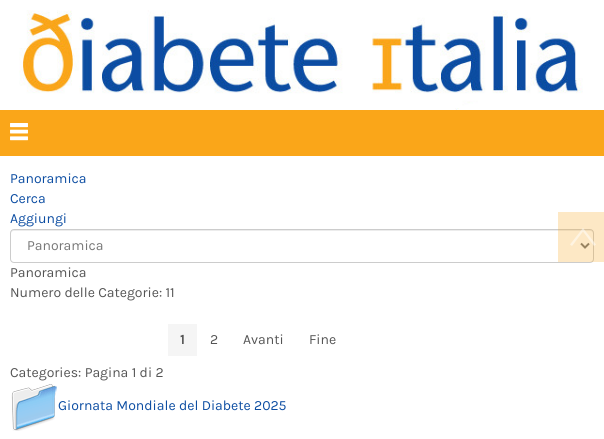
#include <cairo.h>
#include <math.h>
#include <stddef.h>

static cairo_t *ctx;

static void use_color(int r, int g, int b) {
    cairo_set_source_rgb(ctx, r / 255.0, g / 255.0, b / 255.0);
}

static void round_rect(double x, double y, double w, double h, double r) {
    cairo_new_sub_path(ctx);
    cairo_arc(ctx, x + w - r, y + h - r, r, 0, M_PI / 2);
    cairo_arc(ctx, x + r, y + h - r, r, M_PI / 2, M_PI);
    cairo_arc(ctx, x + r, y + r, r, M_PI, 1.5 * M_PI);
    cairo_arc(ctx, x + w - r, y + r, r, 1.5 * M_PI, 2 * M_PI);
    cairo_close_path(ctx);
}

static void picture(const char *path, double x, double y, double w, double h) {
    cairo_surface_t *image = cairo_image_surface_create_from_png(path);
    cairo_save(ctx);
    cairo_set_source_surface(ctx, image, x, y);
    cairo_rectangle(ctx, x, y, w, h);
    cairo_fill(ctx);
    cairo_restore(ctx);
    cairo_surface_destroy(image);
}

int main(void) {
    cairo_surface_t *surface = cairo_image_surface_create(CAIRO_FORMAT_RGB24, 604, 439);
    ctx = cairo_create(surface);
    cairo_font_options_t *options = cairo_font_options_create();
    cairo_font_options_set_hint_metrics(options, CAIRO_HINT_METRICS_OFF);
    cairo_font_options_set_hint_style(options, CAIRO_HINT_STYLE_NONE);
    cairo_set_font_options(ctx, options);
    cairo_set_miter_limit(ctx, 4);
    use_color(255, 255, 255);
    cairo_paint(ctx);
    picture("img1.png", 19, 10, 564, 100);
    use_color(250, 166, 25);
    cairo_rectangle(ctx, 0, 110, 604, 46);
    cairo_fill(ctx);
    picture("img2.png", 10, 123, 18, 18);
    cairo_select_font_face(ctx, "Karla", CAIRO_FONT_SLANT_NORMAL, CAIRO_FONT_WEIGHT_NORMAL);
    cairo_set_font_size(ctx, 14);
    use_color(12, 77, 162);
    cairo_move_to(ctx, 10, 183);
    cairo_show_text(ctx, "Panoramica");
    cairo_move_to(ctx, 10, 203);
    cairo_show_text(ctx, "Cerca");
    cairo_move_to(ctx, 10, 223);
    cairo_show_text(ctx, "Aggiungi");
    use_color(236, 236, 236);
    cairo_new_path(ctx);
    cairo_move_to(ctx, 14, 231);
    cairo_line_to(ctx, 590, 231);
    cairo_curve_to(ctx, 592, 231, 593, 232, 593, 234);
    cairo_line_to(ctx, 593, 233);
    cairo_curve_to(ctx, 593, 231, 592, 230, 590, 230);
    cairo_line_to(ctx, 14, 230);
    cairo_curve_to(ctx, 12, 230, 11, 231, 11, 233);
    cairo_line_to(ctx, 11, 234);
    cairo_curve_to(ctx, 11, 232, 12, 231, 14, 231);
    cairo_close_path(ctx);
    cairo_fill(ctx);
    round_rect(10.5, 229.5, 583, 33, 3.5);
    use_color(204, 204, 204);
    cairo_set_line_width(ctx, 1);
    cairo_stroke(ctx);
    cairo_new_path(ctx);
    cairo_move_to(ctx, 581, 243.5);
    cairo_line_to(ctx, 585, 247.5);
    cairo_line_to(ctx, 589, 243.5);
    use_color(119, 119, 119);
    cairo_set_line_width(ctx, 2);
    cairo_stroke(ctx);
    cairo_move_to(ctx, 27, 250);
    cairo_show_text(ctx, "Panoramica");
    use_color(85, 85, 85);
    cairo_move_to(ctx, 10, 277);
    cairo_show_text(ctx, "Panoramica");
    cairo_move_to(ctx, 10, 297);
    cairo_show_text(ctx, "Numero delle Categorie: 11");
    use_color(245, 245, 245);
    cairo_rectangle(ctx, 168, 324, 29, 32);
    cairo_fill(ctx);
    cairo_select_font_face(ctx, "Karla", CAIRO_FONT_SLANT_NORMAL, CAIRO_FONT_WEIGHT_BOLD);
    use_color(85, 85, 85);
    cairo_move_to(ctx, 180, 344);
    cairo_show_text(ctx, "1");
    cairo_select_font_face(ctx, "Karla", CAIRO_FONT_SLANT_NORMAL, CAIRO_FONT_WEIGHT_NORMAL);
    cairo_move_to(ctx, 210, 344);
    cairo_show_text(ctx, "2");
    cairo_move_to(ctx, 243, 344);
    cairo_show_text(ctx, "Avanti");
    cairo_move_to(ctx, 309, 344);
    cairo_show_text(ctx, "Fine");
    cairo_move_to(ctx, 10, 377);
    cairo_show_text(ctx, "Categories: Pagina 1 di 2");
    picture("img3.png", 11, 384, 46, 47);
    use_color(12, 77, 162);
    cairo_move_to(ctx, 58, 410);
    cairo_show_text(ctx, "Giornata Mondiale del Diabete 2025");
    cairo_set_source_rgba(ctx, 0.98, 0.651, 0.098, 0.25);
    cairo_rectangle(ctx, 558, 212, 46, 50);
    cairo_fill(ctx);
    cairo_set_source_rgba(ctx, 1, 1, 1, 0.5);
    cairo_new_path(ctx);
    cairo_move_to(ctx, 583, 228);
    cairo_line_to(ctx, 596, 244.5);
    cairo_line_to(ctx, 594, 246);
    cairo_line_to(ctx, 583, 231.5);
    cairo_line_to(ctx, 572, 246);
    cairo_line_to(ctx, 570, 244.5);
    cairo_close_path(ctx);
    cairo_fill(ctx);
    cairo_surface_write_to_png(surface, "result.png");
    cairo_font_options_destroy(options);
    cairo_destroy(ctx);
    cairo_surface_destroy(surface);
    return 0;
}
